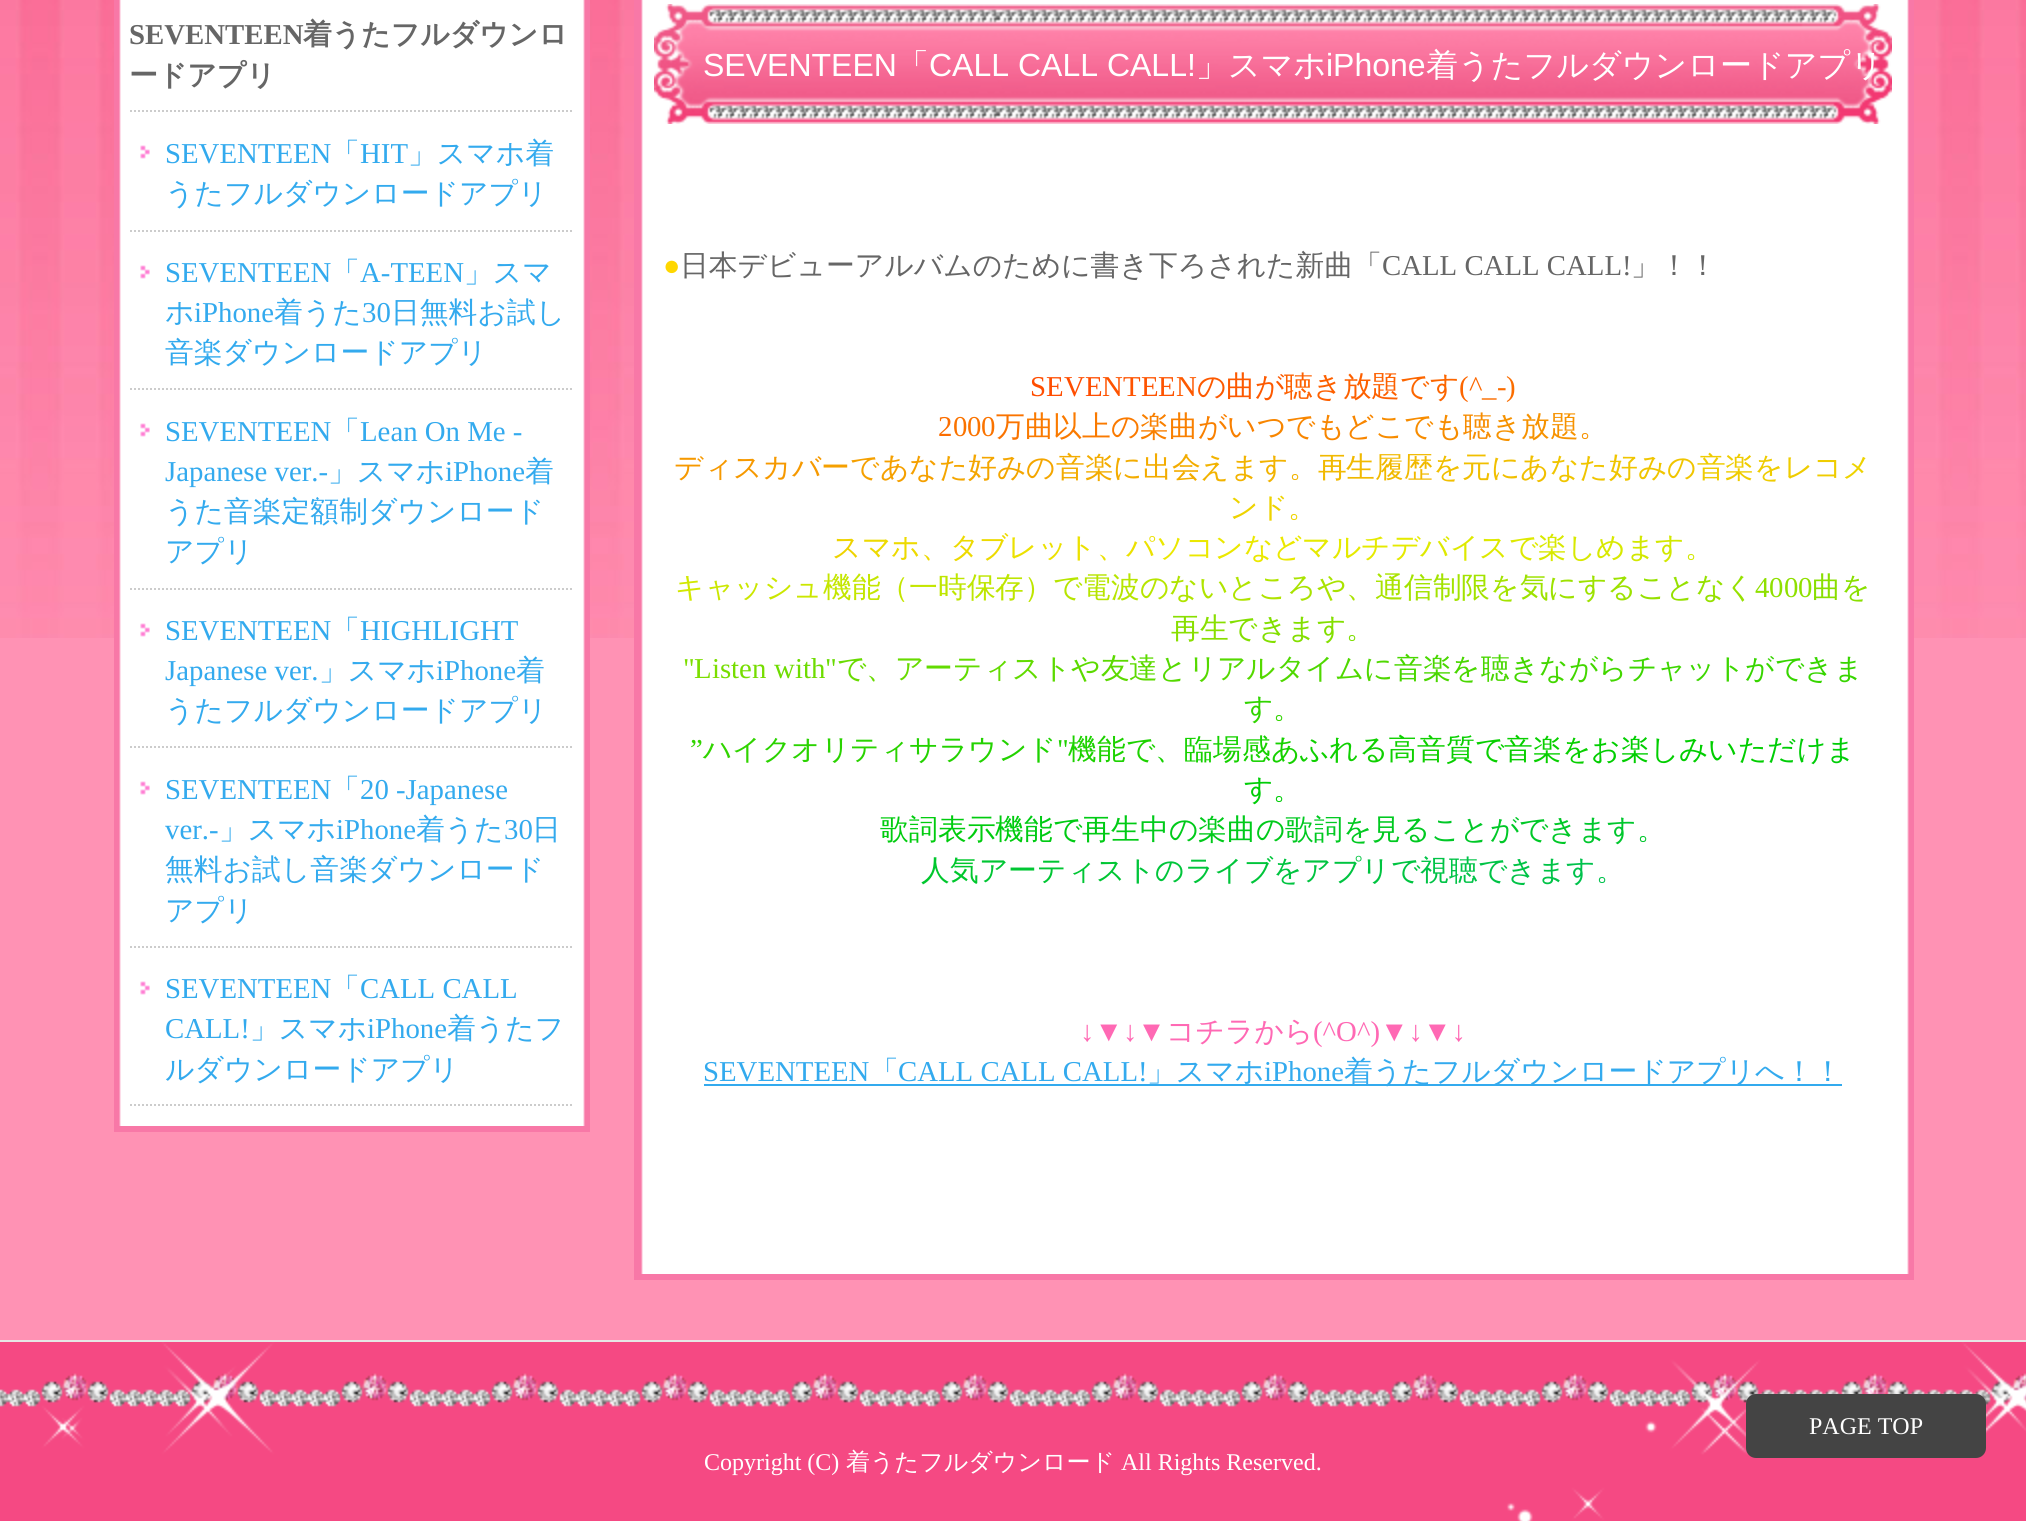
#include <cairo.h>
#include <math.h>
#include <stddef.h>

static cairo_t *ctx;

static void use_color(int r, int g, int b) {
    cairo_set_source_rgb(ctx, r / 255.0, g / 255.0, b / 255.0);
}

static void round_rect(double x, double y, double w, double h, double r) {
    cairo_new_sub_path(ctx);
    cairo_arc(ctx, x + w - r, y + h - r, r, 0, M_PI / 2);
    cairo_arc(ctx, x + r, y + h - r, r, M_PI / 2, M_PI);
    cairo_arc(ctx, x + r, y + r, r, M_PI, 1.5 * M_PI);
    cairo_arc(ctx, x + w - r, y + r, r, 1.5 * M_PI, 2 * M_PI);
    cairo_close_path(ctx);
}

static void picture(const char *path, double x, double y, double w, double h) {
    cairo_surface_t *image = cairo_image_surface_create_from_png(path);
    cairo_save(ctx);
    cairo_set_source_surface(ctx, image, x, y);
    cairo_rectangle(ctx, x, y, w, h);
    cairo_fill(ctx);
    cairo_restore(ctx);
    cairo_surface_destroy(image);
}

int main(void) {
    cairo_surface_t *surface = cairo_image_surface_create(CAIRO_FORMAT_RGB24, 2026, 1521);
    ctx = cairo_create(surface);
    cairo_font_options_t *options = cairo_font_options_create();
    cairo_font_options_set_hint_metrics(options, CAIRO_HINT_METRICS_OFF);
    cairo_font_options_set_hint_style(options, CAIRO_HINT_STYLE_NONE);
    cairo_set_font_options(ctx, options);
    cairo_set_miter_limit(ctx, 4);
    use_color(255, 146, 180);
    cairo_paint(ctx);
    picture("img1.png", 0, 0, 2026, 638);
    picture("img2.png", 114, 0, 476, 1126);
    use_color(248, 120, 167);
    cairo_rectangle(ctx, 114, 1126, 476, 6);
    cairo_fill(ctx);
    cairo_new_path(ctx);
    cairo_move_to(ctx, 130, 111);
    cairo_line_to(ctx, 574, 111);
    use_color(204, 204, 204);
    cairo_set_dash(ctx, (double[]){2, 2}, 2, 0);
    cairo_stroke(ctx);
    cairo_select_font_face(ctx, "Liberation Serif", CAIRO_FONT_SLANT_NORMAL, CAIRO_FONT_WEIGHT_BOLD);
    cairo_set_font_size(ctx, 28.8);
    use_color(102, 102, 102);
    cairo_move_to(ctx, 129, 44);
    cairo_show_text(ctx, "SEVENTEEN");
    cairo_select_font_face(ctx, "WenQuanYi Zen Hei", CAIRO_FONT_SLANT_NORMAL, CAIRO_FONT_WEIGHT_BOLD);
    cairo_move_to(ctx, 303, 44);
    cairo_show_text(ctx, "着うたフルダウンロ");
    cairo_move_to(ctx, 129, 85);
    cairo_show_text(ctx, "ードアプリ");
    picture("img3.png", 140, 145, 10, 14);
    cairo_new_path(ctx);
    cairo_move_to(ctx, 130, 231);
    cairo_line_to(ctx, 574, 231);
    use_color(204, 204, 204);
    cairo_stroke(ctx);
    cairo_select_font_face(ctx, "Liberation Serif", CAIRO_FONT_SLANT_NORMAL, CAIRO_FONT_WEIGHT_NORMAL);
    use_color(51, 170, 238);
    cairo_move_to(ctx, 165, 163);
    cairo_show_text(ctx, "SEVENTEEN");
    cairo_select_font_face(ctx, "WenQuanYi Zen Hei Medium", CAIRO_FONT_SLANT_NORMAL, CAIRO_FONT_WEIGHT_NORMAL);
    cairo_move_to(ctx, 331, 163);
    cairo_show_text(ctx, "「");
    cairo_select_font_face(ctx, "Liberation Serif", CAIRO_FONT_SLANT_NORMAL, CAIRO_FONT_WEIGHT_NORMAL);
    cairo_move_to(ctx, 360, 163);
    cairo_show_text(ctx, "HIT");
    cairo_select_font_face(ctx, "WenQuanYi Zen Hei Medium", CAIRO_FONT_SLANT_NORMAL, CAIRO_FONT_WEIGHT_NORMAL);
    cairo_move_to(ctx, 408, 163);
    cairo_show_text(ctx, "」スマホ着");
    cairo_move_to(ctx, 165, 203);
    cairo_show_text(ctx, "うたフルダウンロードアプリ");
    picture("img3.png", 140, 265, 10, 14);
    cairo_new_path(ctx);
    cairo_move_to(ctx, 130, 389);
    cairo_line_to(ctx, 574, 389);
    use_color(204, 204, 204);
    cairo_stroke(ctx);
    cairo_select_font_face(ctx, "Liberation Serif", CAIRO_FONT_SLANT_NORMAL, CAIRO_FONT_WEIGHT_NORMAL);
    use_color(51, 170, 238);
    cairo_move_to(ctx, 165, 282);
    cairo_show_text(ctx, "SEVENTEEN");
    cairo_select_font_face(ctx, "WenQuanYi Zen Hei Medium", CAIRO_FONT_SLANT_NORMAL, CAIRO_FONT_WEIGHT_NORMAL);
    cairo_move_to(ctx, 331, 282);
    cairo_show_text(ctx, "「");
    cairo_select_font_face(ctx, "Liberation Serif", CAIRO_FONT_SLANT_NORMAL, CAIRO_FONT_WEIGHT_NORMAL);
    cairo_move_to(ctx, 360, 282);
    cairo_show_text(ctx, "A-TEEN");
    cairo_select_font_face(ctx, "WenQuanYi Zen Hei Medium", CAIRO_FONT_SLANT_NORMAL, CAIRO_FONT_WEIGHT_NORMAL);
    cairo_move_to(ctx, 464, 282);
    cairo_show_text(ctx, "」スマ");
    cairo_move_to(ctx, 165, 322);
    cairo_show_text(ctx, "ホ");
    cairo_select_font_face(ctx, "Liberation Serif", CAIRO_FONT_SLANT_NORMAL, CAIRO_FONT_WEIGHT_NORMAL);
    cairo_move_to(ctx, 194, 322);
    cairo_show_text(ctx, "iPhone");
    cairo_select_font_face(ctx, "WenQuanYi Zen Hei Medium", CAIRO_FONT_SLANT_NORMAL, CAIRO_FONT_WEIGHT_NORMAL);
    cairo_move_to(ctx, 274, 322);
    cairo_show_text(ctx, "着うた");
    cairo_select_font_face(ctx, "Liberation Serif", CAIRO_FONT_SLANT_NORMAL, CAIRO_FONT_WEIGHT_NORMAL);
    cairo_move_to(ctx, 362, 322);
    cairo_show_text(ctx, "30");
    cairo_select_font_face(ctx, "WenQuanYi Zen Hei Medium", CAIRO_FONT_SLANT_NORMAL, CAIRO_FONT_WEIGHT_NORMAL);
    cairo_move_to(ctx, 391, 322);
    cairo_show_text(ctx, "日無料お試し");
    cairo_move_to(ctx, 165, 362);
    cairo_show_text(ctx, "音楽ダウンロードアプリ");
    picture("img3.png", 140, 423, 10, 14);
    cairo_new_path(ctx);
    cairo_move_to(ctx, 130, 589);
    cairo_line_to(ctx, 574, 589);
    use_color(204, 204, 204);
    cairo_stroke(ctx);
    cairo_select_font_face(ctx, "Liberation Serif", CAIRO_FONT_SLANT_NORMAL, CAIRO_FONT_WEIGHT_NORMAL);
    use_color(51, 170, 238);
    cairo_move_to(ctx, 165, 441);
    cairo_show_text(ctx, "SEVENTEEN");
    cairo_select_font_face(ctx, "WenQuanYi Zen Hei Medium", CAIRO_FONT_SLANT_NORMAL, CAIRO_FONT_WEIGHT_NORMAL);
    cairo_move_to(ctx, 331, 441);
    cairo_show_text(ctx, "「");
    cairo_select_font_face(ctx, "Liberation Serif", CAIRO_FONT_SLANT_NORMAL, CAIRO_FONT_WEIGHT_NORMAL);
    cairo_move_to(ctx, 360, 441);
    cairo_show_text(ctx, "Lean On Me -");
    cairo_move_to(ctx, 165, 481);
    cairo_show_text(ctx, "Japanese ver.-");
    cairo_select_font_face(ctx, "WenQuanYi Zen Hei Medium", CAIRO_FONT_SLANT_NORMAL, CAIRO_FONT_WEIGHT_NORMAL);
    cairo_move_to(ctx, 328, 481);
    cairo_show_text(ctx, "」スマホ");
    cairo_select_font_face(ctx, "Liberation Serif", CAIRO_FONT_SLANT_NORMAL, CAIRO_FONT_WEIGHT_NORMAL);
    cairo_move_to(ctx, 445, 481);
    cairo_show_text(ctx, "iPhone");
    cairo_select_font_face(ctx, "WenQuanYi Zen Hei Medium", CAIRO_FONT_SLANT_NORMAL, CAIRO_FONT_WEIGHT_NORMAL);
    cairo_move_to(ctx, 525, 481);
    cairo_show_text(ctx, "着");
    cairo_move_to(ctx, 165, 521);
    cairo_show_text(ctx, "うた音楽定額制ダウンロード");
    cairo_move_to(ctx, 165, 561);
    cairo_show_text(ctx, "アプリ");
    picture("img3.png", 140, 623, 10, 14);
    cairo_new_path(ctx);
    cairo_move_to(ctx, 130, 747);
    cairo_line_to(ctx, 574, 747);
    use_color(204, 204, 204);
    cairo_stroke(ctx);
    cairo_select_font_face(ctx, "Liberation Serif", CAIRO_FONT_SLANT_NORMAL, CAIRO_FONT_WEIGHT_NORMAL);
    use_color(51, 170, 238);
    cairo_move_to(ctx, 165, 640);
    cairo_show_text(ctx, "SEVENTEEN");
    cairo_select_font_face(ctx, "WenQuanYi Zen Hei Medium", CAIRO_FONT_SLANT_NORMAL, CAIRO_FONT_WEIGHT_NORMAL);
    cairo_move_to(ctx, 331, 640);
    cairo_show_text(ctx, "「");
    cairo_select_font_face(ctx, "Liberation Serif", CAIRO_FONT_SLANT_NORMAL, CAIRO_FONT_WEIGHT_NORMAL);
    cairo_move_to(ctx, 360, 640);
    cairo_show_text(ctx, "HIGHLIGHT");
    cairo_move_to(ctx, 165, 680);
    cairo_show_text(ctx, "Japanese ver.");
    cairo_select_font_face(ctx, "WenQuanYi Zen Hei Medium", CAIRO_FONT_SLANT_NORMAL, CAIRO_FONT_WEIGHT_NORMAL);
    cairo_move_to(ctx, 319, 680);
    cairo_show_text(ctx, "」スマホ");
    cairo_select_font_face(ctx, "Liberation Serif", CAIRO_FONT_SLANT_NORMAL, CAIRO_FONT_WEIGHT_NORMAL);
    cairo_move_to(ctx, 436, 680);
    cairo_show_text(ctx, "iPhone");
    cairo_select_font_face(ctx, "WenQuanYi Zen Hei Medium", CAIRO_FONT_SLANT_NORMAL, CAIRO_FONT_WEIGHT_NORMAL);
    cairo_move_to(ctx, 516, 680);
    cairo_show_text(ctx, "着");
    cairo_move_to(ctx, 165, 720);
    cairo_show_text(ctx, "うたフルダウンロードアプリ");
    picture("img3.png", 140, 781, 10, 14);
    cairo_new_path(ctx);
    cairo_move_to(ctx, 130, 947);
    cairo_line_to(ctx, 574, 947);
    use_color(204, 204, 204);
    cairo_stroke(ctx);
    cairo_select_font_face(ctx, "Liberation Serif", CAIRO_FONT_SLANT_NORMAL, CAIRO_FONT_WEIGHT_NORMAL);
    use_color(51, 170, 238);
    cairo_move_to(ctx, 165, 799);
    cairo_show_text(ctx, "SEVENTEEN");
    cairo_select_font_face(ctx, "WenQuanYi Zen Hei Medium", CAIRO_FONT_SLANT_NORMAL, CAIRO_FONT_WEIGHT_NORMAL);
    cairo_move_to(ctx, 331, 799);
    cairo_show_text(ctx, "「");
    cairo_select_font_face(ctx, "Liberation Serif", CAIRO_FONT_SLANT_NORMAL, CAIRO_FONT_WEIGHT_NORMAL);
    cairo_move_to(ctx, 360, 799);
    cairo_show_text(ctx, "20 -Japanese");
    cairo_move_to(ctx, 165, 839);
    cairo_show_text(ctx, "ver.-");
    cairo_select_font_face(ctx, "WenQuanYi Zen Hei Medium", CAIRO_FONT_SLANT_NORMAL, CAIRO_FONT_WEIGHT_NORMAL);
    cairo_move_to(ctx, 219, 839);
    cairo_show_text(ctx, "」スマホ");
    cairo_select_font_face(ctx, "Liberation Serif", CAIRO_FONT_SLANT_NORMAL, CAIRO_FONT_WEIGHT_NORMAL);
    cairo_move_to(ctx, 336, 839);
    cairo_show_text(ctx, "iPhone");
    cairo_select_font_face(ctx, "WenQuanYi Zen Hei Medium", CAIRO_FONT_SLANT_NORMAL, CAIRO_FONT_WEIGHT_NORMAL);
    cairo_move_to(ctx, 416, 839);
    cairo_show_text(ctx, "着うた");
    cairo_select_font_face(ctx, "Liberation Serif", CAIRO_FONT_SLANT_NORMAL, CAIRO_FONT_WEIGHT_NORMAL);
    cairo_move_to(ctx, 504, 839);
    cairo_show_text(ctx, "30");
    cairo_select_font_face(ctx, "WenQuanYi Zen Hei Medium", CAIRO_FONT_SLANT_NORMAL, CAIRO_FONT_WEIGHT_NORMAL);
    cairo_move_to(ctx, 532, 839);
    cairo_show_text(ctx, "日");
    cairo_move_to(ctx, 165, 879);
    cairo_show_text(ctx, "無料お試し音楽ダウンロード");
    cairo_move_to(ctx, 165, 920);
    cairo_show_text(ctx, "アプリ");
    picture("img3.png", 140, 981, 10, 14);
    cairo_new_path(ctx);
    cairo_move_to(ctx, 130, 1105);
    cairo_line_to(ctx, 574, 1105);
    use_color(204, 204, 204);
    cairo_stroke(ctx);
    cairo_select_font_face(ctx, "Liberation Serif", CAIRO_FONT_SLANT_NORMAL, CAIRO_FONT_WEIGHT_NORMAL);
    use_color(51, 170, 238);
    cairo_move_to(ctx, 165, 998);
    cairo_show_text(ctx, "SEVENTEEN");
    cairo_select_font_face(ctx, "WenQuanYi Zen Hei Medium", CAIRO_FONT_SLANT_NORMAL, CAIRO_FONT_WEIGHT_NORMAL);
    cairo_move_to(ctx, 331, 998);
    cairo_show_text(ctx, "「");
    cairo_select_font_face(ctx, "Liberation Serif", CAIRO_FONT_SLANT_NORMAL, CAIRO_FONT_WEIGHT_NORMAL);
    cairo_move_to(ctx, 360, 998);
    cairo_show_text(ctx, "CALL CALL");
    cairo_move_to(ctx, 165, 1038);
    cairo_show_text(ctx, "CALL!");
    cairo_select_font_face(ctx, "WenQuanYi Zen Hei Medium", CAIRO_FONT_SLANT_NORMAL, CAIRO_FONT_WEIGHT_NORMAL);
    cairo_move_to(ctx, 250, 1038);
    cairo_show_text(ctx, "」スマホ");
    cairo_select_font_face(ctx, "Liberation Serif", CAIRO_FONT_SLANT_NORMAL, CAIRO_FONT_WEIGHT_NORMAL);
    cairo_move_to(ctx, 367, 1038);
    cairo_show_text(ctx, "iPhone");
    cairo_select_font_face(ctx, "WenQuanYi Zen Hei Medium", CAIRO_FONT_SLANT_NORMAL, CAIRO_FONT_WEIGHT_NORMAL);
    cairo_move_to(ctx, 447, 1038);
    cairo_show_text(ctx, "着うたフ");
    cairo_move_to(ctx, 165, 1079);
    cairo_show_text(ctx, "ルダウンロードアプリ");
    picture("img4.png", 634, 0, 1280, 1274);
    use_color(248, 120, 167);
    cairo_rectangle(ctx, 634, 1274, 1280, 6);
    cairo_fill(ctx);
    picture("img5.png", 654, 4, 1238, 120);
    cairo_select_font_face(ctx, "Liberation Sans", CAIRO_FONT_SLANT_NORMAL, CAIRO_FONT_WEIGHT_NORMAL);
    cairo_set_font_size(ctx, 32);
    use_color(255, 255, 255);
    cairo_move_to(ctx, 703, 76);
    cairo_show_text(ctx, "SEVENTEEN");
    cairo_select_font_face(ctx, "WenQuanYi Zen Hei Medium", CAIRO_FONT_SLANT_NORMAL, CAIRO_FONT_WEIGHT_NORMAL);
    cairo_move_to(ctx, 897, 76);
    cairo_show_text(ctx, "「");
    cairo_select_font_face(ctx, "Liberation Sans", CAIRO_FONT_SLANT_NORMAL, CAIRO_FONT_WEIGHT_NORMAL);
    cairo_move_to(ctx, 929, 76);
    cairo_show_text(ctx, "CALL CALL CALL!");
    cairo_select_font_face(ctx, "WenQuanYi Zen Hei Medium", CAIRO_FONT_SLANT_NORMAL, CAIRO_FONT_WEIGHT_NORMAL);
    cairo_move_to(ctx, 1196, 76);
    cairo_show_text(ctx, "」スマホ");
    cairo_select_font_face(ctx, "Liberation Sans", CAIRO_FONT_SLANT_NORMAL, CAIRO_FONT_WEIGHT_NORMAL);
    cairo_move_to(ctx, 1326, 76);
    cairo_show_text(ctx, "iPhone");
    cairo_select_font_face(ctx, "WenQuanYi Zen Hei Medium", CAIRO_FONT_SLANT_NORMAL, CAIRO_FONT_WEIGHT_NORMAL);
    cairo_move_to(ctx, 1426, 76);
    cairo_show_text(ctx, "着うたフルダウンロードアプリ");
    cairo_select_font_face(ctx, "Liberation Serif", CAIRO_FONT_SLANT_NORMAL, CAIRO_FONT_WEIGHT_NORMAL);
    cairo_set_font_size(ctx, 28.8);
    use_color(255, 215, 0);
    cairo_move_to(ctx, 663, 275);
    cairo_show_text(ctx, "●");
    cairo_select_font_face(ctx, "WenQuanYi Zen Hei Medium", CAIRO_FONT_SLANT_NORMAL, CAIRO_FONT_WEIGHT_NORMAL);
    use_color(102, 102, 102);
    cairo_move_to(ctx, 680, 275);
    cairo_show_text(ctx, "日本デビューアルバムのために書き下ろされた新曲「");
    cairo_select_font_face(ctx, "Liberation Serif", CAIRO_FONT_SLANT_NORMAL, CAIRO_FONT_WEIGHT_NORMAL);
    cairo_move_to(ctx, 1382, 275);
    cairo_show_text(ctx, "CALL CALL CALL!");
    cairo_select_font_face(ctx, "WenQuanYi Zen Hei Medium", CAIRO_FONT_SLANT_NORMAL, CAIRO_FONT_WEIGHT_NORMAL);
    cairo_move_to(ctx, 1631, 275);
    cairo_show_text(ctx, "」！！");
    cairo_select_font_face(ctx, "Liberation Serif", CAIRO_FONT_SLANT_NORMAL, CAIRO_FONT_WEIGHT_NORMAL);
    use_color(255, 77, 0);
    cairo_move_to(ctx, 1030, 396);
    cairo_show_text(ctx, "S");
    cairo_move_to(ctx, 1046, 396);
    cairo_show_text(ctx, "E");
    cairo_move_to(ctx, 1064, 396);
    cairo_show_text(ctx, "V");
    cairo_move_to(ctx, 1085, 396);
    cairo_show_text(ctx, "E");
    use_color(254, 83, 0);
    cairo_move_to(ctx, 1102, 396);
    cairo_show_text(ctx, "N");
    cairo_move_to(ctx, 1123, 396);
    cairo_show_text(ctx, "T");
    cairo_move_to(ctx, 1141, 396);
    cairo_show_text(ctx, "E");
    cairo_move_to(ctx, 1158, 396);
    cairo_show_text(ctx, "E");
    use_color(253, 89, 0);
    cairo_move_to(ctx, 1176, 396);
    cairo_show_text(ctx, "N");
    cairo_select_font_face(ctx, "WenQuanYi Zen Hei Medium", CAIRO_FONT_SLANT_NORMAL, CAIRO_FONT_WEIGHT_NORMAL);
    cairo_move_to(ctx, 1197, 396);
    cairo_show_text(ctx, "の");
    cairo_move_to(ctx, 1226, 396);
    cairo_show_text(ctx, "曲");
    cairo_move_to(ctx, 1255, 396);
    cairo_show_text(ctx, "が");
    use_color(253, 96, 0);
    cairo_move_to(ctx, 1284, 396);
    cairo_show_text(ctx, "聴");
    cairo_move_to(ctx, 1313, 396);
    cairo_show_text(ctx, "き");
    cairo_move_to(ctx, 1343, 396);
    cairo_show_text(ctx, "放");
    cairo_move_to(ctx, 1371, 396);
    cairo_show_text(ctx, "題");
    use_color(252, 102, 0);
    cairo_move_to(ctx, 1400, 396);
    cairo_show_text(ctx, "で");
    cairo_move_to(ctx, 1430, 396);
    cairo_show_text(ctx, "す");
    cairo_select_font_face(ctx, "Liberation Serif", CAIRO_FONT_SLANT_NORMAL, CAIRO_FONT_WEIGHT_NORMAL);
    cairo_move_to(ctx, 1459, 396);
    cairo_show_text(ctx, "(");
    cairo_move_to(ctx, 1469, 396);
    cairo_show_text(ctx, "^");
    use_color(251, 109, 0);
    cairo_move_to(ctx, 1497, 396);
    cairo_show_text(ctx, "-");
    cairo_move_to(ctx, 1506, 396);
    cairo_show_text(ctx, ")");
    cairo_move_to(ctx, 1482, 396);
    cairo_show_text(ctx, "_");
    cairo_move_to(ctx, 938, 436);
    cairo_show_text(ctx, "2");
    use_color(250, 115, 0);
    cairo_move_to(ctx, 953, 436);
    cairo_show_text(ctx, "0");
    cairo_move_to(ctx, 967, 436);
    cairo_show_text(ctx, "0");
    cairo_move_to(ctx, 981, 436);
    cairo_show_text(ctx, "0");
    cairo_select_font_face(ctx, "WenQuanYi Zen Hei Medium", CAIRO_FONT_SLANT_NORMAL, CAIRO_FONT_WEIGHT_NORMAL);
    cairo_move_to(ctx, 996, 436);
    cairo_show_text(ctx, "万");
    use_color(250, 122, 0);
    cairo_move_to(ctx, 1025, 436);
    cairo_show_text(ctx, "曲");
    cairo_move_to(ctx, 1053, 436);
    cairo_show_text(ctx, "以");
    cairo_move_to(ctx, 1082, 436);
    cairo_show_text(ctx, "上");
    cairo_move_to(ctx, 1111, 436);
    cairo_show_text(ctx, "の");
    use_color(249, 128, 0);
    cairo_move_to(ctx, 1140, 436);
    cairo_show_text(ctx, "楽");
    cairo_move_to(ctx, 1169, 436);
    cairo_show_text(ctx, "曲");
    cairo_move_to(ctx, 1198, 436);
    cairo_show_text(ctx, "が");
    cairo_move_to(ctx, 1227, 436);
    cairo_show_text(ctx, "い");
    use_color(248, 134, 0);
    cairo_move_to(ctx, 1257, 436);
    cairo_show_text(ctx, "つ");
    cairo_move_to(ctx, 1286, 436);
    cairo_show_text(ctx, "で");
    cairo_move_to(ctx, 1316, 436);
    cairo_show_text(ctx, "も");
    cairo_move_to(ctx, 1345, 436);
    cairo_show_text(ctx, "ど");
    use_color(247, 140, 0);
    cairo_move_to(ctx, 1375, 436);
    cairo_show_text(ctx, "こ");
    cairo_move_to(ctx, 1404, 436);
    cairo_show_text(ctx, "で");
    cairo_move_to(ctx, 1434, 436);
    cairo_show_text(ctx, "も");
    cairo_move_to(ctx, 1463, 436);
    cairo_show_text(ctx, "聴");
    use_color(246, 146, 0);
    cairo_move_to(ctx, 1492, 436);
    cairo_show_text(ctx, "き");
    cairo_move_to(ctx, 1521, 436);
    cairo_show_text(ctx, "放");
    cairo_move_to(ctx, 1550, 436);
    cairo_show_text(ctx, "題");
    cairo_move_to(ctx, 1579, 436);
    cairo_show_text(ctx, "。");
    use_color(246, 153, 0);
    cairo_move_to(ctx, 674, 477);
    cairo_show_text(ctx, "デ");
    cairo_move_to(ctx, 704, 477);
    cairo_show_text(ctx, "ィ");
    cairo_move_to(ctx, 733, 477);
    cairo_show_text(ctx, "ス");
    cairo_move_to(ctx, 762, 477);
    cairo_show_text(ctx, "カ");
    cairo_move_to(ctx, 792, 477);
    cairo_show_text(ctx, "バ");
    use_color(245, 160, 0);
    cairo_move_to(ctx, 821, 477);
    cairo_show_text(ctx, "ー");
    cairo_move_to(ctx, 850, 477);
    cairo_show_text(ctx, "で");
    cairo_move_to(ctx, 880, 477);
    cairo_show_text(ctx, "あ");
    cairo_move_to(ctx, 909, 477);
    cairo_show_text(ctx, "な");
    use_color(244, 166, 0);
    cairo_move_to(ctx, 939, 477);
    cairo_show_text(ctx, "た");
    cairo_move_to(ctx, 968, 477);
    cairo_show_text(ctx, "好");
    cairo_move_to(ctx, 997, 477);
    cairo_show_text(ctx, "み");
    cairo_move_to(ctx, 1026, 477);
    cairo_show_text(ctx, "の");
    use_color(243, 172, 0);
    cairo_move_to(ctx, 1056, 477);
    cairo_show_text(ctx, "音");
    cairo_move_to(ctx, 1085, 477);
    cairo_show_text(ctx, "楽");
    cairo_move_to(ctx, 1113, 477);
    cairo_show_text(ctx, "に");
    cairo_move_to(ctx, 1143, 477);
    cairo_show_text(ctx, "出");
    cairo_move_to(ctx, 1172, 477);
    cairo_show_text(ctx, "会");
    use_color(242, 179, 0);
    cairo_move_to(ctx, 1200, 477);
    cairo_show_text(ctx, "え");
    cairo_move_to(ctx, 1230, 477);
    cairo_show_text(ctx, "ま");
    cairo_move_to(ctx, 1259, 477);
    cairo_show_text(ctx, "す");
    use_color(241, 185, 0);
    cairo_move_to(ctx, 1318, 477);
    cairo_show_text(ctx, "再");
    cairo_move_to(ctx, 1346, 477);
    cairo_show_text(ctx, "生");
    cairo_move_to(ctx, 1375, 477);
    cairo_show_text(ctx, "履");
    cairo_move_to(ctx, 1404, 477);
    cairo_show_text(ctx, "歴");
    use_color(241, 191, 0);
    cairo_move_to(ctx, 1433, 477);
    cairo_show_text(ctx, "を");
    cairo_move_to(ctx, 1462, 477);
    cairo_show_text(ctx, "元");
    cairo_move_to(ctx, 1491, 477);
    cairo_show_text(ctx, "に");
    cairo_move_to(ctx, 1520, 477);
    cairo_show_text(ctx, "あ");
    use_color(240, 197, 0);
    cairo_move_to(ctx, 1550, 477);
    cairo_show_text(ctx, "な");
    cairo_move_to(ctx, 1579, 477);
    cairo_show_text(ctx, "た");
    cairo_move_to(ctx, 1609, 477);
    cairo_show_text(ctx, "好");
    cairo_move_to(ctx, 1638, 477);
    cairo_show_text(ctx, "み");
    cairo_move_to(ctx, 1667, 477);
    cairo_show_text(ctx, "の");
    use_color(239, 204, 0);
    cairo_move_to(ctx, 1697, 477);
    cairo_show_text(ctx, "音");
    cairo_move_to(ctx, 1725, 477);
    cairo_show_text(ctx, "楽");
    cairo_move_to(ctx, 1754, 477);
    cairo_show_text(ctx, "を");
    cairo_move_to(ctx, 1784, 477);
    cairo_show_text(ctx, "レ");
    cairo_move_to(ctx, 1813, 477);
    cairo_show_text(ctx, "コ");
    use_color(238, 211, 0);
    cairo_move_to(ctx, 1842, 477);
    cairo_show_text(ctx, "メ");
    use_color(242, 179, 0);
    cairo_move_to(ctx, 1289, 477);
    cairo_show_text(ctx, "。");
    use_color(238, 211, 0);
    cairo_move_to(ctx, 1229, 517);
    cairo_show_text(ctx, "ン");
    cairo_move_to(ctx, 1259, 517);
    cairo_show_text(ctx, "ド");
    cairo_move_to(ctx, 1288, 517);
    cairo_show_text(ctx, "。");
    cairo_move_to(ctx, 832, 557);
    cairo_show_text(ctx, "ス");
    use_color(237, 218, 0);
    cairo_move_to(ctx, 862, 557);
    cairo_show_text(ctx, "マ");
    cairo_move_to(ctx, 891, 557);
    cairo_show_text(ctx, "ホ");
    cairo_move_to(ctx, 921, 557);
    cairo_show_text(ctx, "、");
    cairo_move_to(ctx, 950, 557);
    cairo_show_text(ctx, "タ");
    cairo_move_to(ctx, 979, 557);
    cairo_show_text(ctx, "ブ");
    use_color(236, 225, 0);
    cairo_move_to(ctx, 1008, 557);
    cairo_show_text(ctx, "レ");
    cairo_move_to(ctx, 1038, 557);
    cairo_show_text(ctx, "ッ");
    cairo_move_to(ctx, 1067, 557);
    cairo_show_text(ctx, "ト");
    cairo_move_to(ctx, 1097, 557);
    cairo_show_text(ctx, "、");
    cairo_move_to(ctx, 1126, 557);
    cairo_show_text(ctx, "パ");
    use_color(235, 232, 0);
    cairo_move_to(ctx, 1155, 557);
    cairo_show_text(ctx, "ソ");
    cairo_move_to(ctx, 1185, 557);
    cairo_show_text(ctx, "コ");
    cairo_move_to(ctx, 1214, 557);
    cairo_show_text(ctx, "ン");
    cairo_move_to(ctx, 1244, 557);
    cairo_show_text(ctx, "な");
    cairo_move_to(ctx, 1273, 557);
    cairo_show_text(ctx, "ど");
    use_color(229, 234, 0);
    cairo_move_to(ctx, 1302, 557);
    cairo_show_text(ctx, "マ");
    cairo_move_to(ctx, 1332, 557);
    cairo_show_text(ctx, "ル");
    cairo_move_to(ctx, 1361, 557);
    cairo_show_text(ctx, "チ");
    cairo_move_to(ctx, 1391, 557);
    cairo_show_text(ctx, "デ");
    use_color(222, 233, 0);
    cairo_move_to(ctx, 1420, 557);
    cairo_show_text(ctx, "バ");
    cairo_move_to(ctx, 1450, 557);
    cairo_show_text(ctx, "イ");
    cairo_move_to(ctx, 1479, 557);
    cairo_show_text(ctx, "ス");
    cairo_move_to(ctx, 1509, 557);
    cairo_show_text(ctx, "で");
    use_color(216, 233, 0);
    cairo_move_to(ctx, 1538, 557);
    cairo_show_text(ctx, "楽");
    cairo_move_to(ctx, 1567, 557);
    cairo_show_text(ctx, "し");
    cairo_move_to(ctx, 1596, 557);
    cairo_show_text(ctx, "め");
    use_color(210, 232, 0);
    cairo_move_to(ctx, 1626, 557);
    cairo_show_text(ctx, "ま");
    cairo_move_to(ctx, 1655, 557);
    cairo_show_text(ctx, "す");
    cairo_move_to(ctx, 1685, 557);
    cairo_show_text(ctx, "。");
    cairo_move_to(ctx, 675, 597);
    cairo_show_text(ctx, "キ");
    use_color(203, 231, 0);
    cairo_move_to(ctx, 705, 597);
    cairo_show_text(ctx, "ャ");
    cairo_move_to(ctx, 734, 597);
    cairo_show_text(ctx, "ッ");
    cairo_move_to(ctx, 764, 597);
    cairo_show_text(ctx, "シ");
    cairo_move_to(ctx, 793, 597);
    cairo_show_text(ctx, "ュ");
    use_color(196, 230, 0);
    cairo_move_to(ctx, 823, 597);
    cairo_show_text(ctx, "機");
    cairo_move_to(ctx, 852, 597);
    cairo_show_text(ctx, "能");
    cairo_move_to(ctx, 880, 597);
    cairo_show_text(ctx, "（");
    cairo_move_to(ctx, 909, 597);
    cairo_show_text(ctx, "一");
    use_color(190, 230, 0);
    cairo_move_to(ctx, 938, 597);
    cairo_show_text(ctx, "時");
    cairo_move_to(ctx, 967, 597);
    cairo_show_text(ctx, "保");
    cairo_move_to(ctx, 995, 597);
    cairo_show_text(ctx, "存");
    cairo_move_to(ctx, 1024, 597);
    cairo_show_text(ctx, "）");
    use_color(183, 229, 0);
    cairo_move_to(ctx, 1053, 597);
    cairo_show_text(ctx, "で");
    cairo_move_to(ctx, 1082, 597);
    cairo_show_text(ctx, "電");
    cairo_move_to(ctx, 1111, 597);
    cairo_show_text(ctx, "波");
    cairo_move_to(ctx, 1140, 597);
    cairo_show_text(ctx, "の");
    use_color(176, 228, 0);
    cairo_move_to(ctx, 1169, 597);
    cairo_show_text(ctx, "な");
    cairo_move_to(ctx, 1199, 597);
    cairo_show_text(ctx, "い");
    cairo_move_to(ctx, 1228, 597);
    cairo_show_text(ctx, "と");
    cairo_move_to(ctx, 1258, 597);
    cairo_show_text(ctx, "こ");
    use_color(169, 227, 0);
    cairo_move_to(ctx, 1287, 597);
    cairo_show_text(ctx, "ろ");
    cairo_move_to(ctx, 1317, 597);
    cairo_show_text(ctx, "や");
    cairo_move_to(ctx, 1375, 597);
    cairo_show_text(ctx, "通");
    use_color(163, 227, 0);
    cairo_move_to(ctx, 1404, 597);
    cairo_show_text(ctx, "信");
    cairo_move_to(ctx, 1433, 597);
    cairo_show_text(ctx, "制");
    cairo_move_to(ctx, 1461, 597);
    cairo_show_text(ctx, "限");
    cairo_move_to(ctx, 1490, 597);
    cairo_show_text(ctx, "を");
    use_color(157, 226, 0);
    cairo_move_to(ctx, 1520, 597);
    cairo_show_text(ctx, "気");
    cairo_move_to(ctx, 1548, 597);
    cairo_show_text(ctx, "に");
    cairo_move_to(ctx, 1578, 597);
    cairo_show_text(ctx, "す");
    cairo_move_to(ctx, 1607, 597);
    cairo_show_text(ctx, "る");
    use_color(150, 225, 0);
    cairo_move_to(ctx, 1637, 597);
    cairo_show_text(ctx, "こ");
    cairo_move_to(ctx, 1666, 597);
    cairo_show_text(ctx, "と");
    cairo_move_to(ctx, 1696, 597);
    cairo_show_text(ctx, "な");
    cairo_move_to(ctx, 1725, 597);
    cairo_show_text(ctx, "く");
    cairo_select_font_face(ctx, "Liberation Serif", CAIRO_FONT_SLANT_NORMAL, CAIRO_FONT_WEIGHT_NORMAL);
    use_color(143, 224, 0);
    cairo_move_to(ctx, 1755, 597);
    cairo_show_text(ctx, "4");
    cairo_move_to(ctx, 1769, 597);
    cairo_show_text(ctx, "0");
    cairo_move_to(ctx, 1784, 597);
    cairo_show_text(ctx, "0");
    cairo_move_to(ctx, 1798, 597);
    cairo_show_text(ctx, "0");
    cairo_select_font_face(ctx, "WenQuanYi Zen Hei Medium", CAIRO_FONT_SLANT_NORMAL, CAIRO_FONT_WEIGHT_NORMAL);
    use_color(137, 223, 0);
    cairo_move_to(ctx, 1812, 597);
    cairo_show_text(ctx, "曲");
    cairo_move_to(ctx, 1841, 597);
    cairo_show_text(ctx, "を");
    use_color(169, 227, 0);
    cairo_move_to(ctx, 1346, 597);
    cairo_show_text(ctx, "、");
    use_color(137, 223, 0);
    cairo_move_to(ctx, 1171, 638);
    cairo_show_text(ctx, "再");
    cairo_move_to(ctx, 1200, 638);
    cairo_show_text(ctx, "生");
    use_color(131, 223, 0);
    cairo_move_to(ctx, 1228, 638);
    cairo_show_text(ctx, "で");
    cairo_move_to(ctx, 1258, 638);
    cairo_show_text(ctx, "き");
    cairo_move_to(ctx, 1287, 638);
    cairo_show_text(ctx, "ま");
    cairo_move_to(ctx, 1317, 638);
    cairo_show_text(ctx, "す");
    use_color(124, 222, 0);
    cairo_move_to(ctx, 1346, 638);
    cairo_show_text(ctx, "。");
    cairo_select_font_face(ctx, "Liberation Serif", CAIRO_FONT_SLANT_NORMAL, CAIRO_FONT_WEIGHT_NORMAL);
    cairo_move_to(ctx, 683, 678);
    cairo_show_text(ctx, "\"");
    cairo_move_to(ctx, 694, 678);
    cairo_show_text(ctx, "L");
    cairo_move_to(ctx, 712, 678);
    cairo_show_text(ctx, "i");
    use_color(118, 221, 0);
    cairo_move_to(ctx, 720, 678);
    cairo_show_text(ctx, "s");
    cairo_move_to(ctx, 731, 678);
    cairo_show_text(ctx, "t");
    cairo_move_to(ctx, 739, 678);
    cairo_show_text(ctx, "e");
    cairo_move_to(ctx, 752, 678);
    cairo_show_text(ctx, "n");
    use_color(110, 220, 0);
    cairo_move_to(ctx, 774, 678);
    cairo_show_text(ctx, "w");
    cairo_move_to(ctx, 795, 678);
    cairo_show_text(ctx, "i");
    cairo_move_to(ctx, 803, 678);
    cairo_show_text(ctx, "t");
    cairo_move_to(ctx, 811, 678);
    cairo_show_text(ctx, "h");
    use_color(104, 219, 0);
    cairo_move_to(ctx, 825, 678);
    cairo_show_text(ctx, "\"");
    cairo_select_font_face(ctx, "WenQuanYi Zen Hei Medium", CAIRO_FONT_SLANT_NORMAL, CAIRO_FONT_WEIGHT_NORMAL);
    cairo_move_to(ctx, 837, 678);
    cairo_show_text(ctx, "で");
    cairo_move_to(ctx, 895, 678);
    cairo_show_text(ctx, "ア");
    use_color(98, 219, 0);
    cairo_move_to(ctx, 924, 678);
    cairo_show_text(ctx, "ー");
    cairo_move_to(ctx, 953, 678);
    cairo_show_text(ctx, "テ");
    cairo_move_to(ctx, 983, 678);
    cairo_show_text(ctx, "ィ");
    cairo_move_to(ctx, 1012, 678);
    cairo_show_text(ctx, "ス");
    use_color(92, 218, 0);
    cairo_move_to(ctx, 1042, 678);
    cairo_show_text(ctx, "ト");
    cairo_move_to(ctx, 1071, 678);
    cairo_show_text(ctx, "や");
    cairo_move_to(ctx, 1101, 678);
    cairo_show_text(ctx, "友");
    cairo_move_to(ctx, 1129, 678);
    cairo_show_text(ctx, "達");
    use_color(85, 217, 0);
    cairo_move_to(ctx, 1158, 678);
    cairo_show_text(ctx, "と");
    cairo_move_to(ctx, 1188, 678);
    cairo_show_text(ctx, "リ");
    cairo_move_to(ctx, 1217, 678);
    cairo_show_text(ctx, "ア");
    cairo_move_to(ctx, 1246, 678);
    cairo_show_text(ctx, "ル");
    use_color(79, 216, 0);
    cairo_move_to(ctx, 1276, 678);
    cairo_show_text(ctx, "タ");
    cairo_move_to(ctx, 1305, 678);
    cairo_show_text(ctx, "イ");
    cairo_move_to(ctx, 1335, 678);
    cairo_show_text(ctx, "ム");
    cairo_move_to(ctx, 1364, 678);
    cairo_show_text(ctx, "に");
    use_color(73, 215, 0);
    cairo_move_to(ctx, 1394, 678);
    cairo_show_text(ctx, "音");
    cairo_move_to(ctx, 1423, 678);
    cairo_show_text(ctx, "楽");
    cairo_move_to(ctx, 1451, 678);
    cairo_show_text(ctx, "を");
    cairo_move_to(ctx, 1481, 678);
    cairo_show_text(ctx, "聴");
    use_color(67, 215, 0);
    cairo_move_to(ctx, 1510, 678);
    cairo_show_text(ctx, "き");
    cairo_move_to(ctx, 1539, 678);
    cairo_show_text(ctx, "な");
    cairo_move_to(ctx, 1569, 678);
    cairo_show_text(ctx, "が");
    cairo_move_to(ctx, 1598, 678);
    cairo_show_text(ctx, "ら");
    use_color(61, 214, 0);
    cairo_move_to(ctx, 1628, 678);
    cairo_show_text(ctx, "チ");
    cairo_move_to(ctx, 1657, 678);
    cairo_show_text(ctx, "ャ");
    cairo_move_to(ctx, 1686, 678);
    cairo_show_text(ctx, "ッ");
    cairo_move_to(ctx, 1716, 678);
    cairo_show_text(ctx, "ト");
    use_color(55, 213, 0);
    cairo_move_to(ctx, 1745, 678);
    cairo_show_text(ctx, "が");
    cairo_move_to(ctx, 1775, 678);
    cairo_show_text(ctx, "で");
    cairo_move_to(ctx, 1804, 678);
    cairo_show_text(ctx, "き");
    cairo_move_to(ctx, 1834, 678);
    cairo_show_text(ctx, "ま");
    use_color(104, 219, 0);
    cairo_move_to(ctx, 866, 678);
    cairo_show_text(ctx, "、");
    use_color(49, 212, 0);
    cairo_move_to(ctx, 1244, 718);
    cairo_show_text(ctx, "す");
    cairo_move_to(ctx, 1273, 718);
    cairo_show_text(ctx, "。");
    cairo_select_font_face(ctx, "Liberation Serif", CAIRO_FONT_SLANT_NORMAL, CAIRO_FONT_WEIGHT_NORMAL);
    cairo_move_to(ctx, 690, 759);
    cairo_show_text(ctx, "”");
    cairo_select_font_face(ctx, "WenQuanYi Zen Hei Medium", CAIRO_FONT_SLANT_NORMAL, CAIRO_FONT_WEIGHT_NORMAL);
    cairo_move_to(ctx, 703, 759);
    cairo_show_text(ctx, "ハ");
    cairo_move_to(ctx, 732, 759);
    cairo_show_text(ctx, "イ");
    use_color(42, 211, 0);
    cairo_move_to(ctx, 762, 759);
    cairo_show_text(ctx, "ク");
    cairo_move_to(ctx, 791, 759);
    cairo_show_text(ctx, "オ");
    cairo_move_to(ctx, 821, 759);
    cairo_show_text(ctx, "リ");
    cairo_move_to(ctx, 850, 759);
    cairo_show_text(ctx, "テ");
    cairo_move_to(ctx, 880, 759);
    cairo_show_text(ctx, "ィ");
    use_color(35, 210, 0);
    cairo_move_to(ctx, 909, 759);
    cairo_show_text(ctx, "サ");
    cairo_move_to(ctx, 939, 759);
    cairo_show_text(ctx, "ラ");
    cairo_move_to(ctx, 968, 759);
    cairo_show_text(ctx, "ウ");
    cairo_move_to(ctx, 998, 759);
    cairo_show_text(ctx, "ン");
    use_color(29, 210, 0);
    cairo_move_to(ctx, 1027, 759);
    cairo_show_text(ctx, "ド");
    cairo_select_font_face(ctx, "Liberation Serif", CAIRO_FONT_SLANT_NORMAL, CAIRO_FONT_WEIGHT_NORMAL);
    cairo_move_to(ctx, 1057, 759);
    cairo_show_text(ctx, "\"");
    cairo_select_font_face(ctx, "WenQuanYi Zen Hei Medium", CAIRO_FONT_SLANT_NORMAL, CAIRO_FONT_WEIGHT_NORMAL);
    cairo_move_to(ctx, 1068, 759);
    cairo_show_text(ctx, "機");
    cairo_move_to(ctx, 1097, 759);
    cairo_show_text(ctx, "能");
    cairo_move_to(ctx, 1126, 759);
    cairo_show_text(ctx, "で");
    use_color(22, 209, 0);
    cairo_move_to(ctx, 1155, 759);
    cairo_show_text(ctx, "、");
    cairo_move_to(ctx, 1184, 759);
    cairo_show_text(ctx, "臨");
    cairo_move_to(ctx, 1213, 759);
    cairo_show_text(ctx, "場");
    cairo_move_to(ctx, 1242, 759);
    cairo_show_text(ctx, "感");
    cairo_move_to(ctx, 1271, 759);
    cairo_show_text(ctx, "あ");
    use_color(15, 208, 0);
    cairo_move_to(ctx, 1300, 759);
    cairo_show_text(ctx, "ふ");
    cairo_move_to(ctx, 1329, 759);
    cairo_show_text(ctx, "れ");
    cairo_move_to(ctx, 1359, 759);
    cairo_show_text(ctx, "る");
    cairo_move_to(ctx, 1388, 759);
    cairo_show_text(ctx, "高");
    cairo_move_to(ctx, 1417, 759);
    cairo_show_text(ctx, "音");
    use_color(8, 207, 0);
    cairo_move_to(ctx, 1446, 759);
    cairo_show_text(ctx, "質");
    cairo_move_to(ctx, 1475, 759);
    cairo_show_text(ctx, "で");
    cairo_move_to(ctx, 1504, 759);
    cairo_show_text(ctx, "音");
    cairo_move_to(ctx, 1533, 759);
    cairo_show_text(ctx, "楽");
    cairo_move_to(ctx, 1562, 759);
    cairo_show_text(ctx, "を");
    use_color(1, 206, 0);
    cairo_move_to(ctx, 1591, 759);
    cairo_show_text(ctx, "お");
    cairo_move_to(ctx, 1621, 759);
    cairo_show_text(ctx, "楽");
    cairo_move_to(ctx, 1650, 759);
    cairo_show_text(ctx, "し");
    cairo_move_to(ctx, 1679, 759);
    cairo_show_text(ctx, "み");
    cairo_move_to(ctx, 1708, 759);
    cairo_show_text(ctx, "い");
    cairo_move_to(ctx, 1738, 759);
    cairo_show_text(ctx, "た");
    use_color(0, 205, 7);
    cairo_move_to(ctx, 1767, 759);
    cairo_show_text(ctx, "だ");
    cairo_move_to(ctx, 1797, 759);
    cairo_show_text(ctx, "け");
    cairo_move_to(ctx, 1826, 759);
    cairo_show_text(ctx, "ま");
    cairo_move_to(ctx, 1244, 799);
    cairo_show_text(ctx, "す");
    cairo_move_to(ctx, 1273, 799);
    cairo_show_text(ctx, "。");
    use_color(0, 204, 14);
    cairo_move_to(ctx, 880, 839);
    cairo_show_text(ctx, "歌");
    cairo_move_to(ctx, 909, 839);
    cairo_show_text(ctx, "詞");
    cairo_move_to(ctx, 938, 839);
    cairo_show_text(ctx, "表");
    cairo_move_to(ctx, 967, 839);
    cairo_show_text(ctx, "示");
    cairo_move_to(ctx, 995, 839);
    cairo_show_text(ctx, "機");
    use_color(0, 203, 20);
    cairo_move_to(ctx, 1024, 839);
    cairo_show_text(ctx, "能");
    cairo_move_to(ctx, 1053, 839);
    cairo_show_text(ctx, "で");
    cairo_move_to(ctx, 1082, 839);
    cairo_show_text(ctx, "再");
    cairo_move_to(ctx, 1111, 839);
    cairo_show_text(ctx, "生");
    use_color(0, 202, 26);
    cairo_move_to(ctx, 1140, 839);
    cairo_show_text(ctx, "中");
    cairo_move_to(ctx, 1169, 839);
    cairo_show_text(ctx, "の");
    cairo_move_to(ctx, 1198, 839);
    cairo_show_text(ctx, "楽");
    cairo_move_to(ctx, 1227, 839);
    cairo_show_text(ctx, "曲");
    cairo_move_to(ctx, 1256, 839);
    cairo_show_text(ctx, "の");
    use_color(0, 201, 32);
    cairo_move_to(ctx, 1285, 839);
    cairo_show_text(ctx, "歌");
    cairo_move_to(ctx, 1314, 839);
    cairo_show_text(ctx, "詞");
    cairo_move_to(ctx, 1343, 839);
    cairo_show_text(ctx, "を");
    cairo_move_to(ctx, 1372, 839);
    cairo_show_text(ctx, "見");
    cairo_move_to(ctx, 1401, 839);
    cairo_show_text(ctx, "る");
    use_color(0, 200, 39);
    cairo_move_to(ctx, 1431, 839);
    cairo_show_text(ctx, "こ");
    cairo_move_to(ctx, 1460, 839);
    cairo_show_text(ctx, "と");
    cairo_move_to(ctx, 1490, 839);
    cairo_show_text(ctx, "が");
    cairo_move_to(ctx, 1519, 839);
    cairo_show_text(ctx, "で");
    cairo_move_to(ctx, 1548, 839);
    cairo_show_text(ctx, "き");
    use_color(0, 199, 45);
    cairo_move_to(ctx, 1578, 839);
    cairo_show_text(ctx, "ま");
    cairo_move_to(ctx, 1607, 839);
    cairo_show_text(ctx, "す");
    cairo_move_to(ctx, 1637, 839);
    cairo_show_text(ctx, "。");
    cairo_move_to(ctx, 921, 880);
    cairo_show_text(ctx, "人");
    cairo_move_to(ctx, 950, 880);
    cairo_show_text(ctx, "気");
    use_color(0, 198, 51);
    cairo_move_to(ctx, 979, 880);
    cairo_show_text(ctx, "ア");
    cairo_move_to(ctx, 1008, 880);
    cairo_show_text(ctx, "ー");
    cairo_move_to(ctx, 1037, 880);
    cairo_show_text(ctx, "テ");
    cairo_move_to(ctx, 1067, 880);
    cairo_show_text(ctx, "ィ");
    cairo_move_to(ctx, 1096, 880);
    cairo_show_text(ctx, "ス");
    use_color(0, 197, 58);
    cairo_move_to(ctx, 1126, 880);
    cairo_show_text(ctx, "ト");
    cairo_move_to(ctx, 1155, 880);
    cairo_show_text(ctx, "の");
    cairo_move_to(ctx, 1185, 880);
    cairo_show_text(ctx, "ラ");
    cairo_move_to(ctx, 1214, 880);
    cairo_show_text(ctx, "イ");
    cairo_move_to(ctx, 1244, 880);
    cairo_show_text(ctx, "ブ");
    use_color(0, 196, 64);
    cairo_move_to(ctx, 1273, 880);
    cairo_show_text(ctx, "を");
    cairo_move_to(ctx, 1302, 880);
    cairo_show_text(ctx, "ア");
    cairo_move_to(ctx, 1332, 880);
    cairo_show_text(ctx, "プ");
    cairo_move_to(ctx, 1361, 880);
    cairo_show_text(ctx, "リ");
    cairo_move_to(ctx, 1391, 880);
    cairo_show_text(ctx, "で");
    use_color(0, 195, 70);
    cairo_move_to(ctx, 1420, 880);
    cairo_show_text(ctx, "視");
    cairo_move_to(ctx, 1449, 880);
    cairo_show_text(ctx, "聴");
    cairo_move_to(ctx, 1478, 880);
    cairo_show_text(ctx, "で");
    cairo_move_to(ctx, 1507, 880);
    cairo_show_text(ctx, "き");
    cairo_move_to(ctx, 1537, 880);
    cairo_show_text(ctx, "ま");
    use_color(0, 194, 76);
    cairo_move_to(ctx, 1566, 880);
    cairo_show_text(ctx, "す");
    cairo_move_to(ctx, 1596, 880);
    cairo_show_text(ctx, "。");
    cairo_select_font_face(ctx, "Liberation Serif", CAIRO_FONT_SLANT_NORMAL, CAIRO_FONT_WEIGHT_NORMAL);
    use_color(255, 105, 180);
    cairo_move_to(ctx, 1080, 1041);
    cairo_show_text(ctx, "↓▼↓▼");
    cairo_select_font_face(ctx, "WenQuanYi Zen Hei Medium", CAIRO_FONT_SLANT_NORMAL, CAIRO_FONT_WEIGHT_NORMAL);
    cairo_move_to(ctx, 1166, 1041);
    cairo_show_text(ctx, "コチラから");
    cairo_select_font_face(ctx, "Liberation Serif", CAIRO_FONT_SLANT_NORMAL, CAIRO_FONT_WEIGHT_NORMAL);
    cairo_move_to(ctx, 1313, 1041);
    cairo_show_text(ctx, "(^O^)▼↓▼↓");
    use_color(51, 170, 238);
    cairo_move_to(ctx, 703, 1081);
    cairo_show_text(ctx, "SEVENTEEN");
    cairo_select_font_face(ctx, "WenQuanYi Zen Hei Medium", CAIRO_FONT_SLANT_NORMAL, CAIRO_FONT_WEIGHT_NORMAL);
    cairo_move_to(ctx, 870, 1081);
    cairo_show_text(ctx, "「");
    cairo_select_font_face(ctx, "Liberation Serif", CAIRO_FONT_SLANT_NORMAL, CAIRO_FONT_WEIGHT_NORMAL);
    cairo_move_to(ctx, 898, 1081);
    cairo_show_text(ctx, "CALL CALL CALL!");
    cairo_select_font_face(ctx, "WenQuanYi Zen Hei Medium", CAIRO_FONT_SLANT_NORMAL, CAIRO_FONT_WEIGHT_NORMAL);
    cairo_move_to(ctx, 1147, 1081);
    cairo_show_text(ctx, "」スマホ");
    cairo_rectangle(ctx, 704, 1084, 1138, 2);
    cairo_fill(ctx);
    cairo_select_font_face(ctx, "Liberation Serif", CAIRO_FONT_SLANT_NORMAL, CAIRO_FONT_WEIGHT_NORMAL);
    cairo_move_to(ctx, 1264, 1081);
    cairo_show_text(ctx, "iPhone");
    cairo_select_font_face(ctx, "WenQuanYi Zen Hei Medium", CAIRO_FONT_SLANT_NORMAL, CAIRO_FONT_WEIGHT_NORMAL);
    cairo_move_to(ctx, 1344, 1081);
    cairo_show_text(ctx, "着うたフルダウンロードアプリへ！！");
    use_color(245, 73, 131);
    cairo_rectangle(ctx, 0, 1342, 2026, 179);
    cairo_fill(ctx);
    picture("img6.png", 0, 1342, 2026, 179);
    use_color(68, 68, 68);
    round_rect(1746, 1394, 240, 64, 10);
    cairo_fill(ctx);
    cairo_select_font_face(ctx, "Liberation Serif", CAIRO_FONT_SLANT_NORMAL, CAIRO_FONT_WEIGHT_NORMAL);
    cairo_set_font_size(ctx, 24);
    use_color(255, 255, 255);
    cairo_move_to(ctx, 1809, 1434);
    cairo_show_text(ctx, "PAGE TOP");
    use_color(230, 230, 230);
    cairo_rectangle(ctx, 0, 1340, 2026, 2);
    cairo_fill(ctx);
    use_color(255, 255, 255);
    cairo_move_to(ctx, 704, 1470);
    cairo_show_text(ctx, "Copyright (C)");
    cairo_select_font_face(ctx, "WenQuanYi Zen Hei Medium", CAIRO_FONT_SLANT_NORMAL, CAIRO_FONT_WEIGHT_NORMAL);
    cairo_move_to(ctx, 846, 1470);
    cairo_show_text(ctx, "着うたフルダウンロード");
    cairo_select_font_face(ctx, "Liberation Serif", CAIRO_FONT_SLANT_NORMAL, CAIRO_FONT_WEIGHT_NORMAL);
    cairo_move_to(ctx, 1121, 1470);
    cairo_show_text(ctx, "All Rights Reserved.");
    cairo_surface_write_to_png(surface, "result.png");
    cairo_font_options_destroy(options);
    cairo_destroy(ctx);
    cairo_surface_destroy(surface);
    return 0;
}
